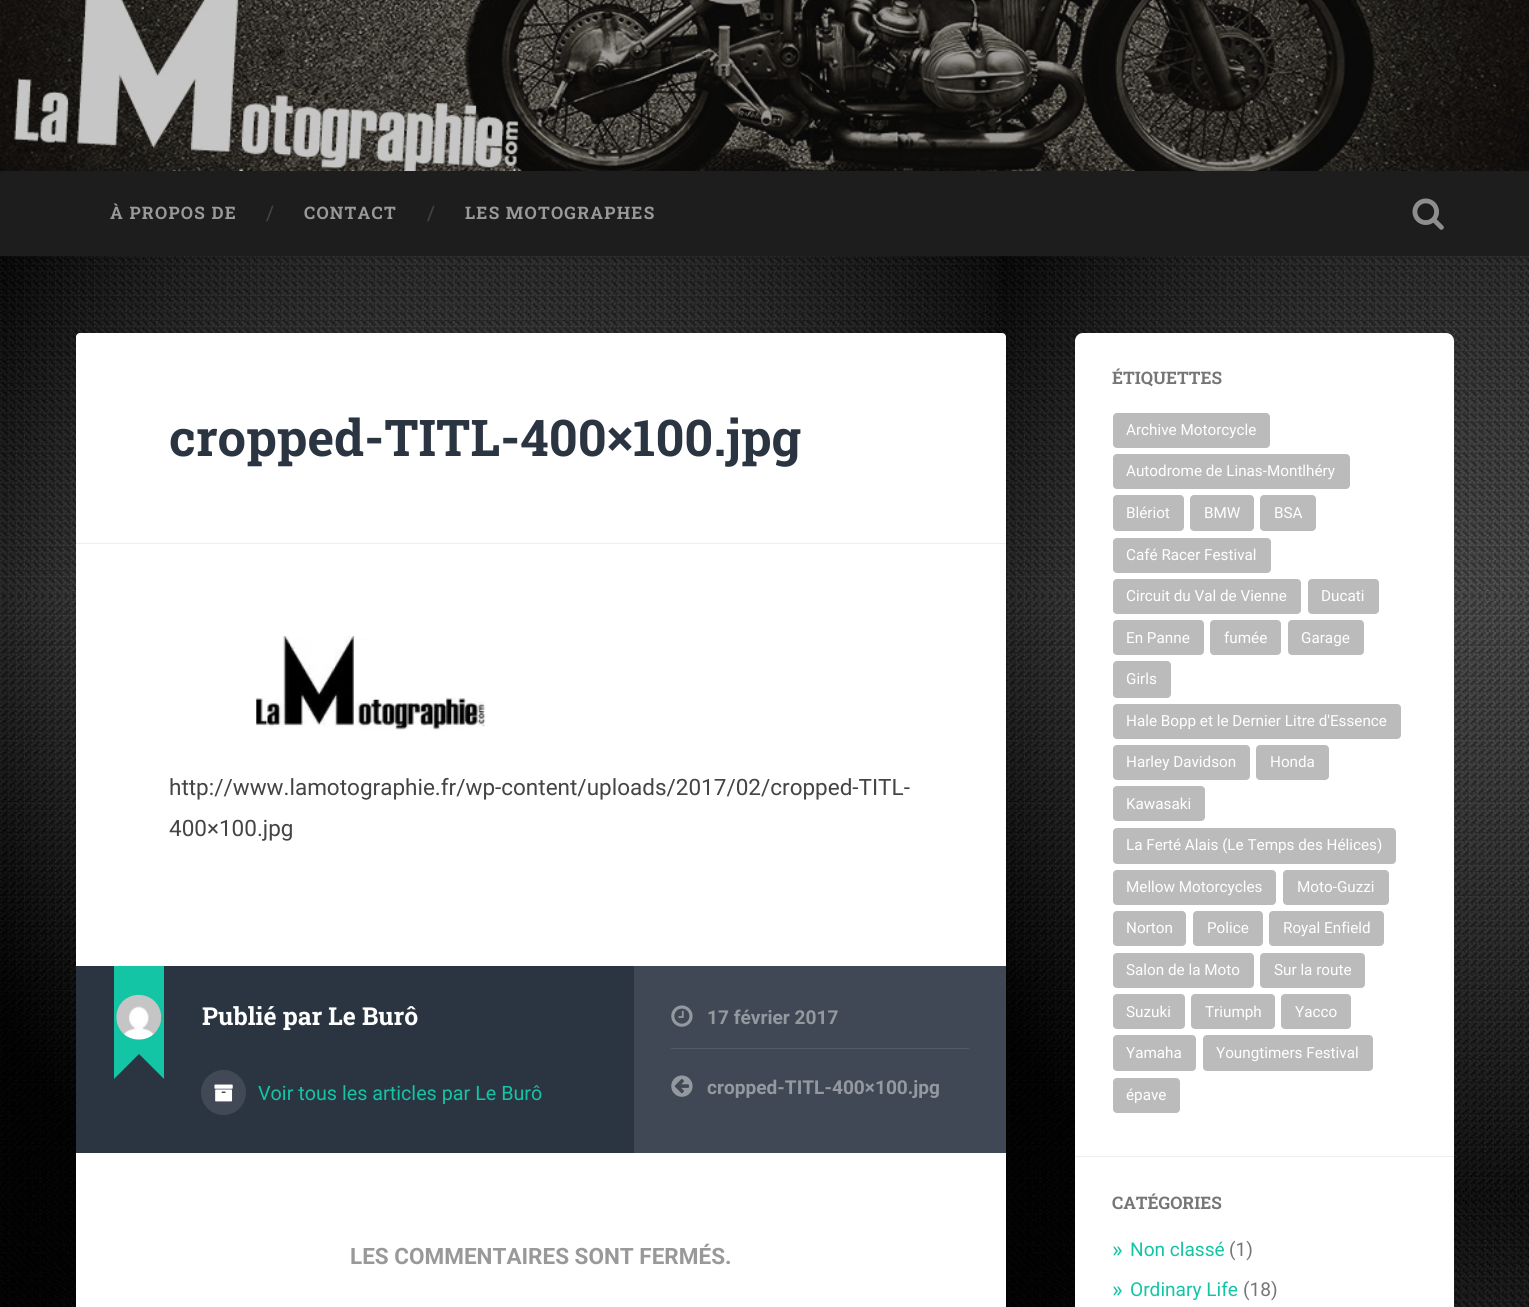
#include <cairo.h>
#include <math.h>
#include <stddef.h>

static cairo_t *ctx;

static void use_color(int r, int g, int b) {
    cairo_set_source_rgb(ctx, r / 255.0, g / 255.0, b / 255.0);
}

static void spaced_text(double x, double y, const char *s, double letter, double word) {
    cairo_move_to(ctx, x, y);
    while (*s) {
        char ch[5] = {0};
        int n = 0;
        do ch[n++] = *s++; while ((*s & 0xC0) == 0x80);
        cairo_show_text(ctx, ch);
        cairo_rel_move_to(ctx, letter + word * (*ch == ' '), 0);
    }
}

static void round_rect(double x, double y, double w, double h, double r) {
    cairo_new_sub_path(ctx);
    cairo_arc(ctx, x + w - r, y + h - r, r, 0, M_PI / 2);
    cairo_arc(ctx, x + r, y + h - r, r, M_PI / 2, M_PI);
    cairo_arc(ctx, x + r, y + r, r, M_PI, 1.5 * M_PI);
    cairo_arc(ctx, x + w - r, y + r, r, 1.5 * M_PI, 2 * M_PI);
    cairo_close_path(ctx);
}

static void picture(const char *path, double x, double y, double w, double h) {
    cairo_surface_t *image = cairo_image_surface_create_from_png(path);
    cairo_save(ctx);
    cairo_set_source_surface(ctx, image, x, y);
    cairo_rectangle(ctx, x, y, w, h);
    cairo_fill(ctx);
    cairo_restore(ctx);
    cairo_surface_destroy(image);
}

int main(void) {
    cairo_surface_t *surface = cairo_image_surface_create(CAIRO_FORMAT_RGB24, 1529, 1307);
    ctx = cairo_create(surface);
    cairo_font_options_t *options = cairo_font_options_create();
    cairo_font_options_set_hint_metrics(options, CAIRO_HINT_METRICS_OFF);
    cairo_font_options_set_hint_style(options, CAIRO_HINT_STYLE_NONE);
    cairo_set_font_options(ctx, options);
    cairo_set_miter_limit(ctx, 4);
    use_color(255, 255, 255);
    cairo_paint(ctx);
    picture("img1.png", 0, 256, 1529, 1051);
    picture("img2.png", 0, 0, 1529, 171);
    use_color(29, 29, 29);
    cairo_rectangle(ctx, 0, 171, 1529, 85);
    cairo_fill(ctx);
    cairo_select_font_face(ctx, "Roboto Slab", CAIRO_FONT_SLANT_NORMAL, CAIRO_FONT_WEIGHT_BOLD);
    cairo_set_font_size(ctx, 17.25);
    use_color(153, 153, 153);
    spaced_text(110, 219, "À PROPOS DE", 1.25, 0);
    cairo_select_font_face(ctx, "Roboto Slab", CAIRO_FONT_SLANT_NORMAL, CAIRO_FONT_WEIGHT_NORMAL);
    cairo_set_font_size(ctx, 20);
    use_color(68, 68, 68);
    cairo_move_to(ctx, 266, 220);
    cairo_show_text(ctx, "/");
    cairo_select_font_face(ctx, "Roboto Slab", CAIRO_FONT_SLANT_NORMAL, CAIRO_FONT_WEIGHT_BOLD);
    cairo_set_font_size(ctx, 17.25);
    use_color(153, 153, 153);
    spaced_text(304, 219, "CONTACT", 1.25, 0);
    cairo_select_font_face(ctx, "Roboto Slab", CAIRO_FONT_SLANT_NORMAL, CAIRO_FONT_WEIGHT_NORMAL);
    cairo_set_font_size(ctx, 20);
    use_color(68, 68, 68);
    cairo_move_to(ctx, 427, 220);
    cairo_show_text(ctx, "/");
    cairo_select_font_face(ctx, "Roboto Slab", CAIRO_FONT_SLANT_NORMAL, CAIRO_FONT_WEIGHT_BOLD);
    cairo_set_font_size(ctx, 17.25);
    use_color(153, 153, 153);
    spaced_text(465, 219, "LES MOTOGRAPHES", 1.25, 0);
    picture("img3.png", 1412, 198, 32, 32);
    use_color(255, 255, 255);
    round_rect(76, 333, 930, 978, 4);
    cairo_fill(ctx);
    use_color(238, 238, 238);
    cairo_rectangle(ctx, 76, 543, 930, 1);
    cairo_fill(ctx);
    cairo_set_font_size(ctx, 50.6);
    use_color(43, 53, 66);
    cairo_move_to(ctx, 169, 456);
    cairo_show_text(ctx, "cropped-TITL-400×100.jpg");
    picture("img4.png", 255, 636, 231, 94);
    cairo_select_font_face(ctx, "Roboto", CAIRO_FONT_SLANT_NORMAL, CAIRO_FONT_WEIGHT_NORMAL);
    cairo_set_font_size(ctx, 22.5);
    use_color(68, 68, 68);
    cairo_move_to(ctx, 169, 795);
    cairo_show_text(ctx, "http://www.lamotographie.fr/wp-content/uploads/2017/02/cropped-TITL-");
    cairo_move_to(ctx, 169, 836);
    cairo_show_text(ctx, "400×100.jpg");
    use_color(43, 53, 66);
    cairo_rectangle(ctx, 76, 966, 558, 187);
    cairo_fill(ctx);
    use_color(19, 196, 165);
    cairo_new_path(ctx);
    cairo_move_to(ctx, 164, 1029);
    cairo_line_to(ctx, 164, 1079);
    cairo_line_to(ctx, 139, 1054);
    cairo_close_path(ctx);
    cairo_move_to(ctx, 114, 1079);
    cairo_line_to(ctx, 114, 1029);
    cairo_line_to(ctx, 139, 1054);
    cairo_close_path(ctx);
    cairo_fill(ctx);
    cairo_rectangle(ctx, 114, 966, 50, 88);
    cairo_fill(ctx);
    picture("img5.png", 116, 994, 46, 46);
    cairo_select_font_face(ctx, "Roboto Slab", CAIRO_FONT_SLANT_NORMAL, CAIRO_FONT_WEIGHT_BOLD);
    cairo_set_font_size(ctx, 24.75);
    use_color(255, 255, 255);
    cairo_move_to(ctx, 202, 1025);
    cairo_show_text(ctx, "Publié par Le Burô");
    use_color(64, 73, 85);
    cairo_new_path(ctx);
    cairo_arc(ctx, 223.5, 1092.5, 22.5, 0, 2 * M_PI);
    cairo_fill(ctx);
    picture("img6.png", 214, 1084, 19, 18);
    cairo_select_font_face(ctx, "Roboto", CAIRO_FONT_SLANT_NORMAL, CAIRO_FONT_WEIGHT_NORMAL);
    cairo_set_font_size(ctx, 19.75);
    use_color(19, 196, 165);
    cairo_move_to(ctx, 258, 1100);
    cairo_show_text(ctx, "Voir tous les articles par Le Burô");
    use_color(63, 72, 84);
    cairo_rectangle(ctx, 634, 966, 372, 187);
    cairo_fill(ctx);
    picture("img7.png", 671, 1005, 22, 22);
    cairo_select_font_face(ctx, "Roboto", CAIRO_FONT_SLANT_NORMAL, CAIRO_FONT_WEIGHT_BOLD);
    cairo_set_font_size(ctx, 19.1);
    use_color(148, 153, 160);
    cairo_move_to(ctx, 707, 1024);
    cairo_show_text(ctx, "17 février 2017");
    use_color(82, 90, 101);
    cairo_rectangle(ctx, 671, 1048, 298, 1);
    cairo_fill(ctx);
    picture("img8.png", 671, 1075, 22, 22);
    use_color(148, 153, 160);
    cairo_move_to(ctx, 707, 1094);
    cairo_show_text(ctx, "cropped-TITL-400×100.jpg");
    cairo_set_font_size(ctx, 22.5);
    use_color(153, 153, 153);
    cairo_move_to(ctx, 350, 1264);
    cairo_show_text(ctx, "LES COMMENTAIRES SONT FERMÉS.");
    use_color(255, 255, 255);
    round_rect(1075, 333, 379, 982, 8);
    cairo_fill(ctx);
    cairo_select_font_face(ctx, "Roboto Slab", CAIRO_FONT_SLANT_NORMAL, CAIRO_FONT_WEIGHT_BOLD);
    cairo_set_font_size(ctx, 17.25);
    use_color(118, 118, 118);
    cairo_move_to(ctx, 1112, 384);
    cairo_show_text(ctx, "ÉTIQUETTES");
    use_color(187, 187, 187);
    round_rect(1113, 413, 157, 35, 4);
    cairo_fill(ctx);
    cairo_select_font_face(ctx, "Roboto", CAIRO_FONT_SLANT_NORMAL, CAIRO_FONT_WEIGHT_NORMAL);
    cairo_set_font_size(ctx, 15.25);
    use_color(255, 255, 255);
    cairo_move_to(ctx, 1126, 435);
    cairo_show_text(ctx, "Archive Motorcycle");
    use_color(187, 187, 187);
    round_rect(1113, 454, 237, 35, 4);
    cairo_fill(ctx);
    use_color(255, 255, 255);
    cairo_move_to(ctx, 1126, 476);
    cairo_show_text(ctx, "Autodrome de Linas-Montlhéry");
    use_color(187, 187, 187);
    round_rect(1113, 495, 71, 36, 4);
    cairo_fill(ctx);
    use_color(255, 255, 255);
    cairo_move_to(ctx, 1126, 518);
    cairo_show_text(ctx, "Blériot");
    use_color(187, 187, 187);
    round_rect(1190, 495, 64, 36, 4);
    cairo_fill(ctx);
    use_color(255, 255, 255);
    cairo_move_to(ctx, 1204, 518);
    cairo_show_text(ctx, "BMW");
    use_color(187, 187, 187);
    round_rect(1260, 495, 56, 36, 4);
    cairo_fill(ctx);
    use_color(255, 255, 255);
    cairo_move_to(ctx, 1274, 518);
    cairo_show_text(ctx, "BSA");
    use_color(187, 187, 187);
    round_rect(1113, 538, 158, 35, 4);
    cairo_fill(ctx);
    use_color(255, 255, 255);
    cairo_move_to(ctx, 1126, 560);
    cairo_show_text(ctx, "Café Racer Festival");
    use_color(187, 187, 187);
    round_rect(1113, 579, 188, 35, 4);
    cairo_fill(ctx);
    use_color(255, 255, 255);
    cairo_move_to(ctx, 1126, 601);
    cairo_show_text(ctx, "Circuit du Val de Vienne");
    use_color(187, 187, 187);
    round_rect(1308, 579, 71, 35, 4);
    cairo_fill(ctx);
    use_color(255, 255, 255);
    cairo_move_to(ctx, 1321, 601);
    cairo_show_text(ctx, "Ducati");
    use_color(187, 187, 187);
    round_rect(1113, 620, 91, 35, 4);
    cairo_fill(ctx);
    use_color(255, 255, 255);
    cairo_move_to(ctx, 1126, 643);
    cairo_show_text(ctx, "En Panne");
    use_color(187, 187, 187);
    round_rect(1210, 620, 71, 35, 4);
    cairo_fill(ctx);
    use_color(255, 255, 255);
    cairo_move_to(ctx, 1224, 643);
    cairo_show_text(ctx, "fumée");
    use_color(187, 187, 187);
    round_rect(1288, 620, 76, 35, 4);
    cairo_fill(ctx);
    use_color(255, 255, 255);
    cairo_move_to(ctx, 1301, 643);
    cairo_show_text(ctx, "Garage");
    use_color(187, 187, 187);
    round_rect(1113, 661, 58, 37, 4);
    cairo_fill(ctx);
    use_color(255, 255, 255);
    cairo_move_to(ctx, 1126, 684);
    cairo_show_text(ctx, "Girls");
    use_color(187, 187, 187);
    round_rect(1113, 704, 288, 35, 4);
    cairo_fill(ctx);
    use_color(255, 255, 255);
    cairo_move_to(ctx, 1126, 726);
    cairo_show_text(ctx, "Hale Bopp et le Dernier Litre d'Essence");
    use_color(187, 187, 187);
    round_rect(1113, 745, 137, 35, 4);
    cairo_fill(ctx);
    use_color(255, 255, 255);
    cairo_move_to(ctx, 1126, 767);
    cairo_show_text(ctx, "Harley Davidson");
    use_color(187, 187, 187);
    round_rect(1256, 745, 73, 35, 4);
    cairo_fill(ctx);
    use_color(255, 255, 255);
    cairo_move_to(ctx, 1270, 767);
    cairo_show_text(ctx, "Honda");
    use_color(187, 187, 187);
    round_rect(1113, 786, 92, 35, 4);
    cairo_fill(ctx);
    use_color(255, 255, 255);
    cairo_move_to(ctx, 1126, 809);
    cairo_show_text(ctx, "Kawasaki");
    use_color(187, 187, 187);
    round_rect(1113, 828, 283, 36, 4);
    cairo_fill(ctx);
    use_color(255, 255, 255);
    cairo_move_to(ctx, 1126, 850);
    cairo_show_text(ctx, "La Ferté Alais (Le Temps des Hélices)");
    use_color(187, 187, 187);
    round_rect(1113, 870, 163, 35, 4);
    cairo_fill(ctx);
    use_color(255, 255, 255);
    cairo_move_to(ctx, 1126, 892);
    cairo_show_text(ctx, "Mellow Motorcycles");
    use_color(187, 187, 187);
    round_rect(1283, 870, 106, 35, 4);
    cairo_fill(ctx);
    use_color(255, 255, 255);
    cairo_move_to(ctx, 1297, 892);
    cairo_show_text(ctx, "Moto-Guzzi");
    use_color(187, 187, 187);
    round_rect(1113, 911, 73, 35, 4);
    cairo_fill(ctx);
    use_color(255, 255, 255);
    cairo_move_to(ctx, 1126, 933);
    cairo_show_text(ctx, "Norton");
    use_color(187, 187, 187);
    round_rect(1193, 911, 70, 35, 4);
    cairo_fill(ctx);
    use_color(255, 255, 255);
    cairo_move_to(ctx, 1207, 933);
    cairo_show_text(ctx, "Police");
    use_color(187, 187, 187);
    round_rect(1269, 911, 115, 35, 4);
    cairo_fill(ctx);
    use_color(255, 255, 255);
    cairo_move_to(ctx, 1283, 933);
    cairo_show_text(ctx, "Royal Enfield");
    use_color(187, 187, 187);
    round_rect(1113, 953, 141, 35, 4);
    cairo_fill(ctx);
    use_color(255, 255, 255);
    cairo_move_to(ctx, 1126, 975);
    cairo_show_text(ctx, "Salon de la Moto");
    use_color(187, 187, 187);
    round_rect(1260, 953, 105, 35, 4);
    cairo_fill(ctx);
    use_color(255, 255, 255);
    cairo_move_to(ctx, 1274, 975);
    cairo_show_text(ctx, "Sur la route");
    use_color(187, 187, 187);
    round_rect(1113, 994, 72, 35, 4);
    cairo_fill(ctx);
    use_color(255, 255, 255);
    cairo_move_to(ctx, 1126, 1017);
    cairo_show_text(ctx, "Suzuki");
    use_color(187, 187, 187);
    round_rect(1191, 994, 84, 35, 4);
    cairo_fill(ctx);
    use_color(255, 255, 255);
    cairo_move_to(ctx, 1205, 1017);
    cairo_show_text(ctx, "Triumph");
    use_color(187, 187, 187);
    round_rect(1281, 994, 70, 35, 4);
    cairo_fill(ctx);
    use_color(255, 255, 255);
    cairo_move_to(ctx, 1295, 1017);
    cairo_show_text(ctx, "Yacco");
    use_color(187, 187, 187);
    round_rect(1113, 1035, 83, 36, 4);
    cairo_fill(ctx);
    use_color(255, 255, 255);
    cairo_move_to(ctx, 1126, 1058);
    cairo_show_text(ctx, "Yamaha");
    use_color(187, 187, 187);
    round_rect(1203, 1035, 170, 36, 4);
    cairo_fill(ctx);
    use_color(255, 255, 255);
    cairo_move_to(ctx, 1216, 1058);
    cairo_show_text(ctx, "Youngtimers Festival");
    use_color(187, 187, 187);
    round_rect(1113, 1078, 67, 35, 4);
    cairo_fill(ctx);
    use_color(255, 255, 255);
    cairo_move_to(ctx, 1126, 1100);
    cairo_show_text(ctx, "épave");
    use_color(238, 238, 238);
    cairo_rectangle(ctx, 1075, 1156, 379, 1);
    cairo_fill(ctx);
    cairo_select_font_face(ctx, "Roboto Slab", CAIRO_FONT_SLANT_NORMAL, CAIRO_FONT_WEIGHT_BOLD);
    cairo_set_font_size(ctx, 17.25);
    use_color(118, 118, 118);
    cairo_move_to(ctx, 1112, 1209);
    cairo_show_text(ctx, "CATÉGORIES");
    cairo_select_font_face(ctx, "Roboto", CAIRO_FONT_SLANT_NORMAL, CAIRO_FONT_WEIGHT_NORMAL);
    cairo_set_font_size(ctx, 22.5);
    use_color(19, 196, 165);
    cairo_move_to(ctx, 1112, 1257);
    cairo_show_text(ctx, "»");
    cairo_set_font_size(ctx, 19.1);
    cairo_move_to(ctx, 1130, 1256);
    cairo_show_text(ctx, "Non classé");
    use_color(118, 118, 118);
    cairo_move_to(ctx, 1229, 1256);
    cairo_show_text(ctx, "(1)");
    cairo_set_font_size(ctx, 22.5);
    use_color(19, 196, 165);
    cairo_move_to(ctx, 1112, 1297);
    cairo_show_text(ctx, "»");
    cairo_set_font_size(ctx, 19.1);
    cairo_move_to(ctx, 1130, 1296);
    cairo_show_text(ctx, "Ordinary Life");
    use_color(118, 118, 118);
    cairo_move_to(ctx, 1243, 1296);
    cairo_show_text(ctx, "(18)");
    cairo_surface_write_to_png(surface, "result.png");
    cairo_font_options_destroy(options);
    cairo_destroy(ctx);
    cairo_surface_destroy(surface);
    return 0;
}
